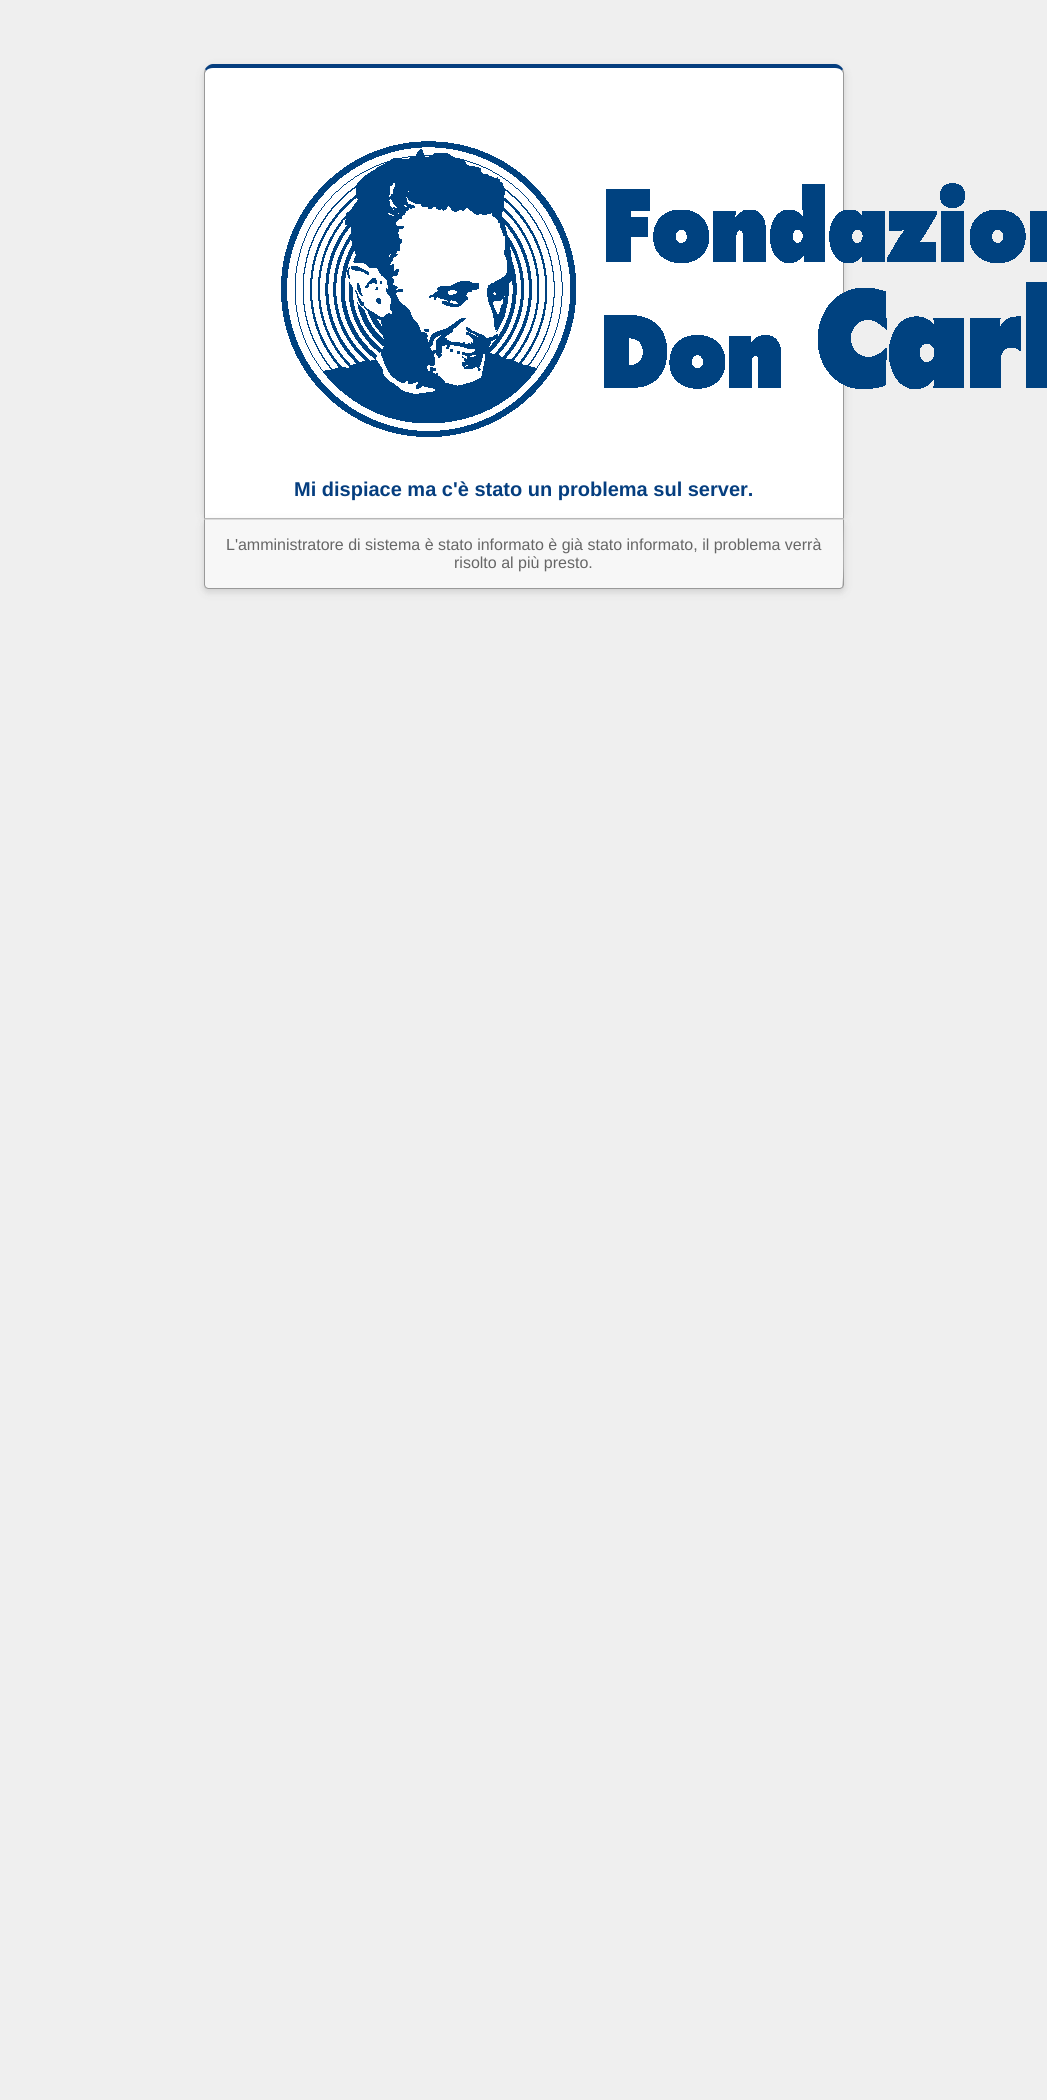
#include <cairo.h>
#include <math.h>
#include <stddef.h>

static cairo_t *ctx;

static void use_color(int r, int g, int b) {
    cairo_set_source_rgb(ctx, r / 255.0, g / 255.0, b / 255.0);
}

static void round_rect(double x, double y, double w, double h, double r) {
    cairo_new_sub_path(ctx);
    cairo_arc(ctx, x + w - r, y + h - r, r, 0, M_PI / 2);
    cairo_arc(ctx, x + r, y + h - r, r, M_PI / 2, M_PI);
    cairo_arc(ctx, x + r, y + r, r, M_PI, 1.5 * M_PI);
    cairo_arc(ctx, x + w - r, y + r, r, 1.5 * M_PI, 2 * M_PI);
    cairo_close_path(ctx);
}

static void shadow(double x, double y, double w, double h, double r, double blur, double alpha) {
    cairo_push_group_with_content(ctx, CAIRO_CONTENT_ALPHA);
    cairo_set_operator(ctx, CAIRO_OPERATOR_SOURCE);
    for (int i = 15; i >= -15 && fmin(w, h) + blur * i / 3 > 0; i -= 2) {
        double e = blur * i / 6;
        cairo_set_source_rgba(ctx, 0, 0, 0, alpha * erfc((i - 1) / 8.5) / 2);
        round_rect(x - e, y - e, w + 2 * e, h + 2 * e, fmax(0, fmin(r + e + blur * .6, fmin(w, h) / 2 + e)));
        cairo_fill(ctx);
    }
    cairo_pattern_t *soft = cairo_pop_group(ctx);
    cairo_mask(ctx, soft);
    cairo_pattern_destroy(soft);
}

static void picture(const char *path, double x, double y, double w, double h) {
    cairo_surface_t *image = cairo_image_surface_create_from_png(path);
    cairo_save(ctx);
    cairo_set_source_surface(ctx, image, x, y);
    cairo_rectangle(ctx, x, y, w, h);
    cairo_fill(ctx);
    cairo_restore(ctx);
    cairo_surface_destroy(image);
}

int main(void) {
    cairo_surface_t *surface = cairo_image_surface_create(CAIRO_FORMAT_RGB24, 1047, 2100);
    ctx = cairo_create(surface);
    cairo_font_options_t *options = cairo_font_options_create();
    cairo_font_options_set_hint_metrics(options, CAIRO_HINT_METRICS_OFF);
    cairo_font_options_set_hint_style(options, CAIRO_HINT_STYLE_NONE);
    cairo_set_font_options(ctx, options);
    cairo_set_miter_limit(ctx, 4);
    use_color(239, 239, 239);
    cairo_paint(ctx);
    use_color(50, 50, 50);
    shadow(204, 67, 640, 455, 9, 4, 0.17);
    use_color(255, 255, 255);
    cairo_new_path(ctx);
    cairo_move_to(ctx, 213, 68);
    cairo_line_to(ctx, 835, 68);
    cairo_curve_to(ctx, 839, 68, 843, 70, 843, 73);
    cairo_line_to(ctx, 843, 518);
    cairo_line_to(ctx, 205, 518);
    cairo_line_to(ctx, 205, 73);
    cairo_curve_to(ctx, 205, 70, 209, 68, 213, 68);
    cairo_close_path(ctx);
    cairo_fill(ctx);
    use_color(5, 62, 127);
    cairo_new_path(ctx);
    cairo_move_to(ctx, 213, 64);
    cairo_curve_to(ctx, 210, 64, 207, 66, 205, 69);
    cairo_line_to(ctx, 206, 71);
    cairo_curve_to(ctx, 207, 69, 210, 68, 213, 68);
    cairo_line_to(ctx, 835, 68);
    cairo_curve_to(ctx, 838, 68, 841, 69, 842, 71);
    cairo_line_to(ctx, 843, 69);
    cairo_curve_to(ctx, 841, 66, 838, 64, 835, 64);
    cairo_close_path(ctx);
    cairo_fill(ctx);
    use_color(153, 153, 153);
    cairo_new_path(ctx);
    cairo_move_to(ctx, 844, 519);
    cairo_line_to(ctx, 844, 73);
    cairo_line_to(ctx, 843, 69);
    cairo_line_to(ctx, 842, 71);
    cairo_line_to(ctx, 843, 73);
    cairo_line_to(ctx, 843, 518);
    cairo_close_path(ctx);
    cairo_fill(ctx);
    use_color(187, 187, 187);
    cairo_new_path(ctx);
    cairo_move_to(ctx, 844, 519);
    cairo_line_to(ctx, 843, 518);
    cairo_line_to(ctx, 205, 518);
    cairo_line_to(ctx, 204, 519);
    cairo_close_path(ctx);
    cairo_fill(ctx);
    use_color(153, 153, 153);
    cairo_new_path(ctx);
    cairo_move_to(ctx, 204, 519);
    cairo_line_to(ctx, 205, 518);
    cairo_line_to(ctx, 205, 73);
    cairo_line_to(ctx, 206, 71);
    cairo_line_to(ctx, 205, 69);
    cairo_line_to(ctx, 204, 73);
    cairo_close_path(ctx);
    cairo_fill(ctx);
    picture("img1.png", 281, 141, 766, 296);
    cairo_select_font_face(ctx, "Liberation Sans", CAIRO_FONT_SLANT_NORMAL, CAIRO_FONT_WEIGHT_BOLD);
    cairo_set_font_size(ctx, 20);
    use_color(5, 62, 127);
    cairo_move_to(ctx, 294, 496);
    cairo_show_text(ctx, "Mi dispiace ma c'è stato un problema sul server.");
    use_color(50, 50, 50);
    shadow(204, 522, 640, 70, 4, 4, 0.17);
    use_color(247, 247, 247);
    cairo_new_path(ctx);
    cairo_move_to(ctx, 204, 519);
    cairo_line_to(ctx, 844, 519);
    cairo_line_to(ctx, 844, 585);
    cairo_curve_to(ctx, 844, 587, 842, 589, 840, 589);
    cairo_line_to(ctx, 208, 589);
    cairo_curve_to(ctx, 206, 589, 204, 587, 204, 585);
    cairo_close_path(ctx);
    cairo_fill(ctx);
    use_color(218, 218, 218);
    cairo_new_path(ctx);
    cairo_move_to(ctx, 204, 519);
    cairo_line_to(ctx, 205, 520);
    cairo_line_to(ctx, 843, 520);
    cairo_line_to(ctx, 844, 519);
    cairo_close_path(ctx);
    cairo_fill(ctx);
    use_color(153, 153, 153);
    cairo_new_path(ctx);
    cairo_move_to(ctx, 844, 519);
    cairo_line_to(ctx, 843, 520);
    cairo_curve_to(ctx, 843, 527, 844, 586, 842, 587);
    cairo_line_to(ctx, 843, 588);
    cairo_line_to(ctx, 844, 585);
    cairo_close_path(ctx);
    cairo_fill(ctx);
    cairo_new_path(ctx);
    cairo_move_to(ctx, 208, 589);
    cairo_line_to(ctx, 840, 589);
    cairo_curve_to(ctx, 841, 589, 842, 588, 843, 588);
    cairo_line_to(ctx, 842, 587);
    cairo_line_to(ctx, 840, 588);
    cairo_line_to(ctx, 208, 588);
    cairo_line_to(ctx, 206, 587);
    cairo_line_to(ctx, 205, 588);
    cairo_close_path(ctx);
    cairo_fill(ctx);
    cairo_new_path(ctx);
    cairo_move_to(ctx, 205, 520);
    cairo_line_to(ctx, 204, 519);
    cairo_line_to(ctx, 204, 585);
    cairo_line_to(ctx, 205, 588);
    cairo_line_to(ctx, 206, 587);
    cairo_line_to(ctx, 205, 585);
    cairo_close_path(ctx);
    cairo_fill(ctx);
    cairo_select_font_face(ctx, "Liberation Sans", CAIRO_FONT_SLANT_NORMAL, CAIRO_FONT_WEIGHT_NORMAL);
    cairo_set_font_size(ctx, 16);
    use_color(102, 102, 102);
    cairo_move_to(ctx, 226, 550);
    cairo_show_text(ctx, "L'amministratore di sistema è stato informato è già stato informato, il problema verrà");
    cairo_move_to(ctx, 454, 568);
    cairo_show_text(ctx, "risolto al più presto.");
    cairo_surface_write_to_png(surface, "result.png");
    cairo_font_options_destroy(options);
    cairo_destroy(ctx);
    cairo_surface_destroy(surface);
    return 0;
}
